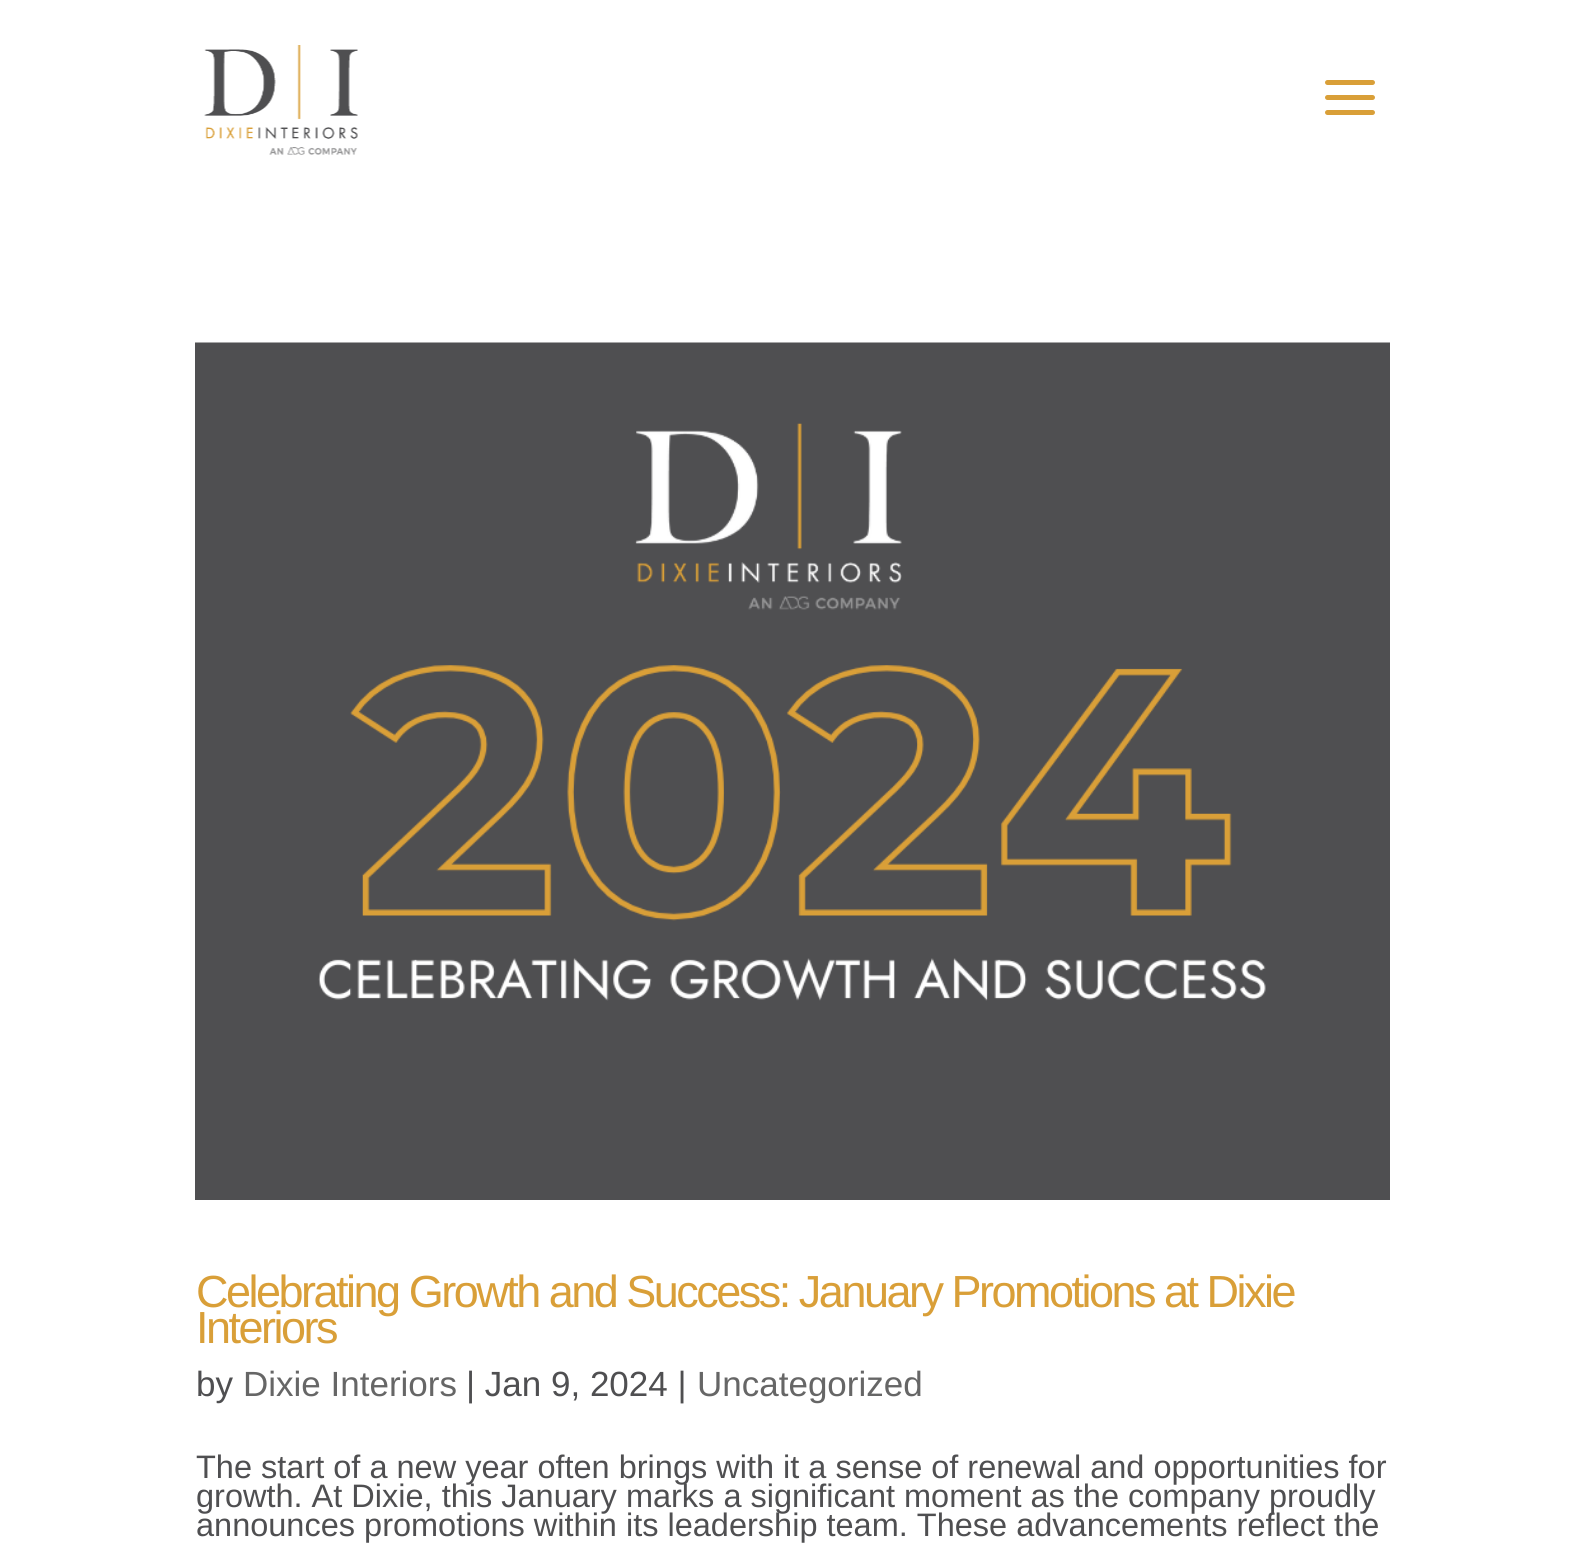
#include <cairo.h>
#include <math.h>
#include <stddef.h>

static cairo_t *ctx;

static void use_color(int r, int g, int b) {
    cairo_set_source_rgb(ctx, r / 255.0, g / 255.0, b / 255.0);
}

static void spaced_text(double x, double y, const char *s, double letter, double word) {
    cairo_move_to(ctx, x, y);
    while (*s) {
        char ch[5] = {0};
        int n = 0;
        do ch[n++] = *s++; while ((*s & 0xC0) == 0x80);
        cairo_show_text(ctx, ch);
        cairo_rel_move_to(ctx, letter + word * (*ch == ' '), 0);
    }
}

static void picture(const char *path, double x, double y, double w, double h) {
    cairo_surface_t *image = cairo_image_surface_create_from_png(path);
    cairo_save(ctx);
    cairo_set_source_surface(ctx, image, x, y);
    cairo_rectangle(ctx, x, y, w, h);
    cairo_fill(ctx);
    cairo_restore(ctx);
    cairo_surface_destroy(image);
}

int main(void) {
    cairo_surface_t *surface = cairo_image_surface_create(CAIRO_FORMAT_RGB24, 1584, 1549);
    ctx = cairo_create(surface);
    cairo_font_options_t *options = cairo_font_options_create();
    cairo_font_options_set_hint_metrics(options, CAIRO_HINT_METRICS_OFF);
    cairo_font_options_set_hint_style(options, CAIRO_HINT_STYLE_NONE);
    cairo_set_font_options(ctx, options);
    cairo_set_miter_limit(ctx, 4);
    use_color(255, 255, 255);
    cairo_paint(ctx);
    picture("img1.png", 204, 45, 154, 110);
    picture("img2.png", 1325, 80, 50, 35);
    picture("img3.png", 195, 342, 1195, 858);
    cairo_select_font_face(ctx, "Liberation Sans", CAIRO_FONT_SLANT_NORMAL, CAIRO_FONT_WEIGHT_NORMAL);
    cairo_set_font_size(ctx, 45);
    use_color(217, 159, 56);
    spaced_text(196, 1307, "Celebrating Growth and Success: January Promotions at Dixie", -2.5, 0);
    spaced_text(196, 1343, "Interiors", -2.5, 0);
    cairo_set_font_size(ctx, 35);
    use_color(79, 79, 81);
    cairo_move_to(ctx, 196, 1396);
    cairo_show_text(ctx, "by");
    use_color(102, 102, 102);
    cairo_move_to(ctx, 243, 1396);
    cairo_show_text(ctx, "Dixie Interiors");
    use_color(79, 79, 81);
    cairo_move_to(ctx, 466, 1396);
    cairo_show_text(ctx, "| Jan 9, 2024 |");
    use_color(102, 102, 102);
    cairo_move_to(ctx, 697, 1396);
    cairo_show_text(ctx, "Uncategorized");
    cairo_set_font_size(ctx, 32.5);
    use_color(79, 79, 81);
    cairo_move_to(ctx, 196, 1478);
    cairo_show_text(ctx, "The start of a new year often brings with it a sense of renewal and opportunities for");
    cairo_move_to(ctx, 196, 1507);
    cairo_show_text(ctx, "growth. At Dixie, this January marks a significant moment as the company proudly");
    cairo_move_to(ctx, 196, 1536);
    cairo_show_text(ctx, "announces promotions within its leadership team. These advancements reflect the");
    cairo_surface_write_to_png(surface, "result.png");
    cairo_font_options_destroy(options);
    cairo_destroy(ctx);
    cairo_surface_destroy(surface);
    return 0;
}
